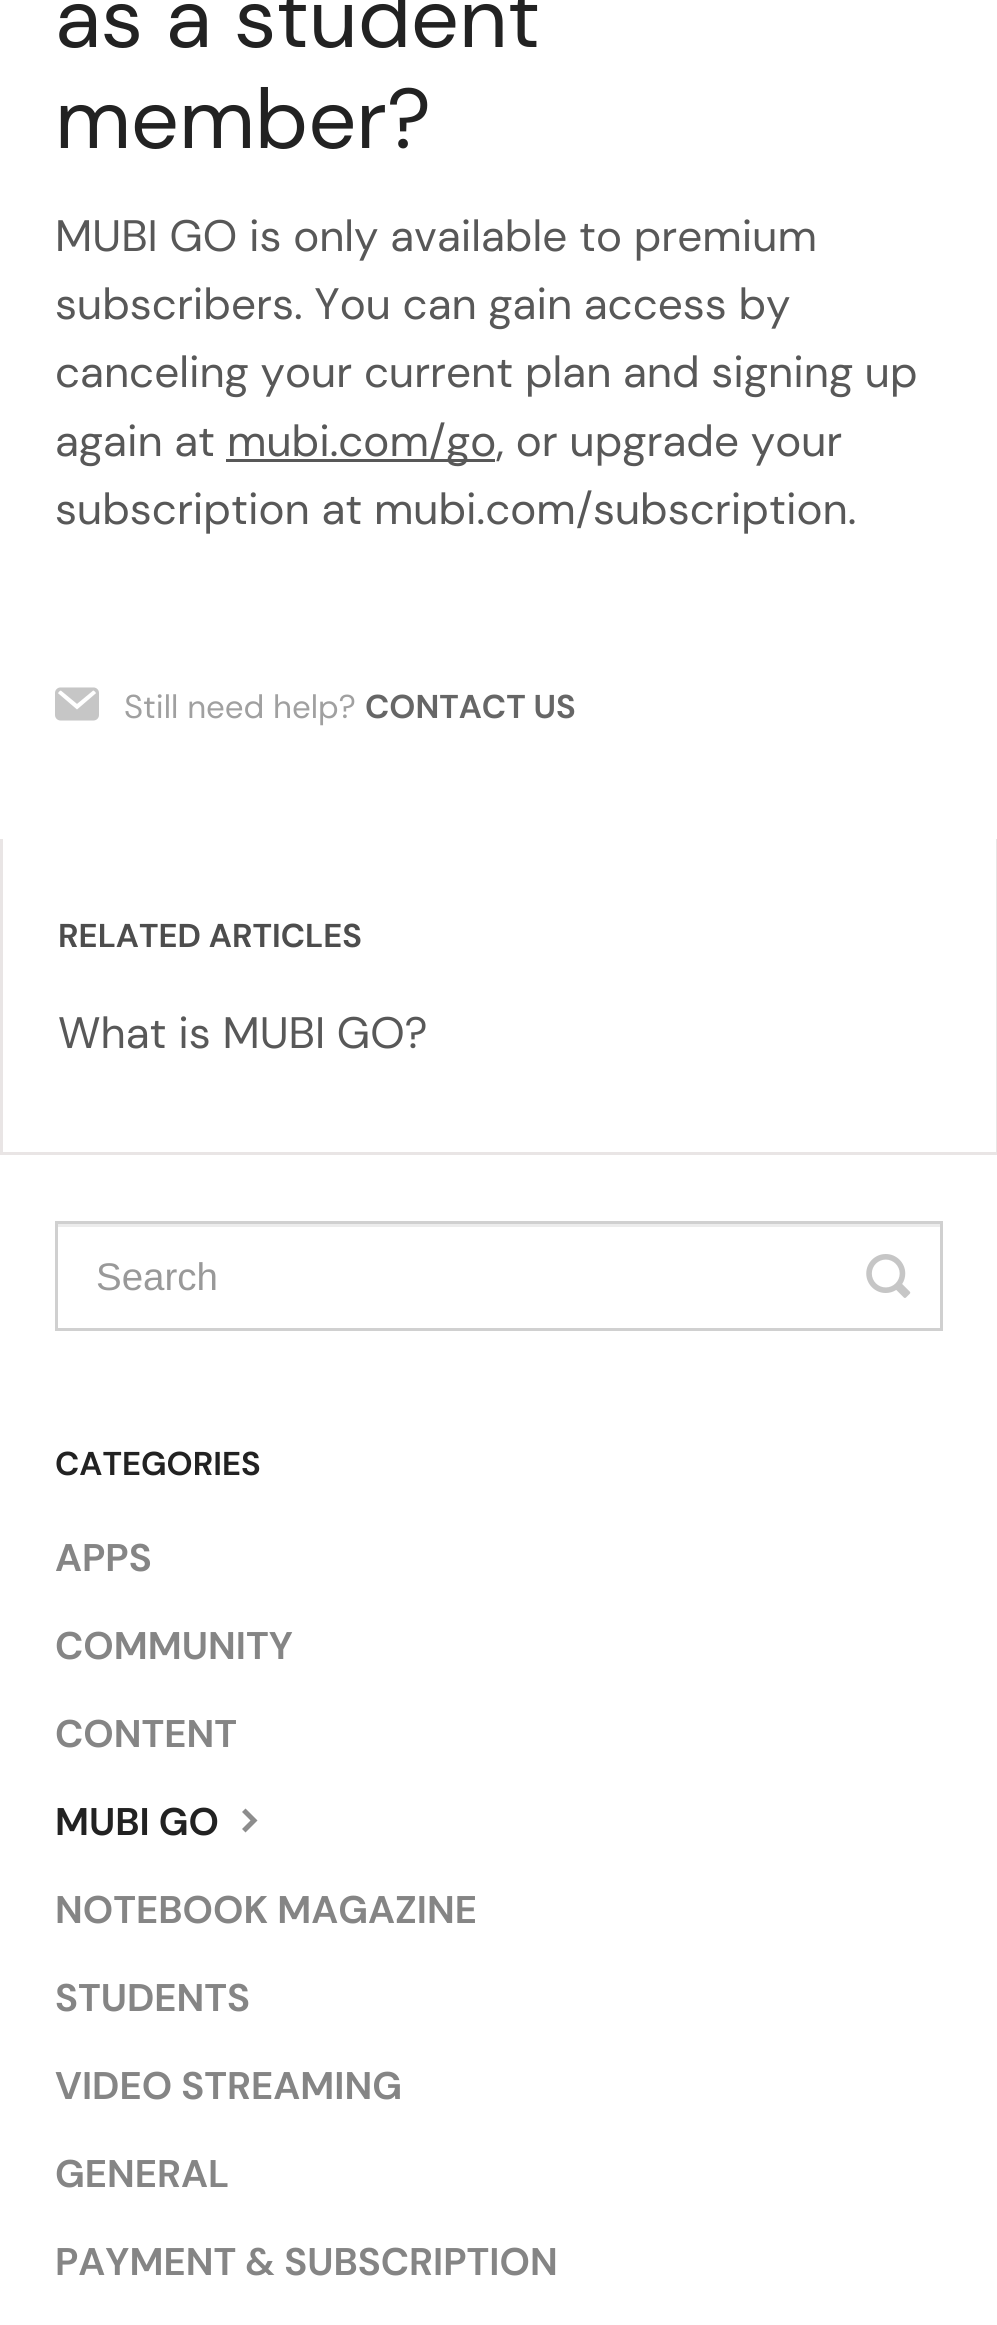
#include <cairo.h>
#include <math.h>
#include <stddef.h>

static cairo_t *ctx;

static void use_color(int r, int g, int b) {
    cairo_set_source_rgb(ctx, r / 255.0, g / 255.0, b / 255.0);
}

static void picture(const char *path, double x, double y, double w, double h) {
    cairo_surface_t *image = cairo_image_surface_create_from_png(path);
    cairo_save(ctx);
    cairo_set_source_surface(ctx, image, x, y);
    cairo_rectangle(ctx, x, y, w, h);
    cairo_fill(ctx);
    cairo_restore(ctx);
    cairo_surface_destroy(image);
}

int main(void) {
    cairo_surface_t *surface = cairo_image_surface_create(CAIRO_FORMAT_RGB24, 997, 2325);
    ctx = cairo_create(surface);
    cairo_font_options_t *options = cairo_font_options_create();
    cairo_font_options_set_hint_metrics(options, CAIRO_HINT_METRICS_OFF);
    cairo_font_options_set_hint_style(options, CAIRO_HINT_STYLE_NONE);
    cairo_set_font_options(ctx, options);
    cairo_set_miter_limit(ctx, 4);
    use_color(255, 255, 255);
    cairo_paint(ctx);
    cairo_select_font_face(ctx, "DM Sans", CAIRO_FONT_SLANT_NORMAL, CAIRO_FONT_WEIGHT_NORMAL);
    cairo_set_font_size(ctx, 84.75);
    use_color(34, 34, 34);
    cairo_move_to(ctx, 55, 47);
    cairo_show_text(ctx, "as a student");
    cairo_move_to(ctx, 55, 148);
    cairo_show_text(ctx, "member?");
    cairo_set_font_size(ctx, 44);
    use_color(88, 88, 88);
    cairo_move_to(ctx, 55, 251);
    cairo_show_text(ctx, "MUBI GO is only available to premium");
    cairo_move_to(ctx, 55, 319);
    cairo_show_text(ctx, "subscribers. You can gain access by");
    cairo_move_to(ctx, 55, 387);
    cairo_show_text(ctx, "canceling your current plan and signing up");
    cairo_move_to(ctx, 55, 456);
    cairo_show_text(ctx, "again at");
    cairo_rectangle(ctx, 226, 459, 269, 3);
    cairo_fill(ctx);
    cairo_move_to(ctx, 227, 456);
    cairo_show_text(ctx, "mubi.com/go, or upgrade your");
    cairo_move_to(ctx, 55, 524);
    cairo_show_text(ctx, "subscription at mubi.com/subscription.");
    picture("img1.png", 55, 687, 44, 34);
    cairo_set_font_size(ctx, 33);
    use_color(160, 160, 160);
    cairo_move_to(ctx, 124, 718);
    cairo_show_text(ctx, "Still need help?");
    cairo_select_font_face(ctx, "DM Sans", CAIRO_FONT_SLANT_NORMAL, CAIRO_FONT_WEIGHT_BOLD);
    use_color(102, 102, 102);
    cairo_move_to(ctx, 365, 718);
    cairo_show_text(ctx, "CONTACT US");
    use_color(233, 229, 229);
    cairo_rectangle(ctx, 996, 839, 1, 316);
    cairo_fill(ctx);
    cairo_rectangle(ctx, 0, 1152, 997, 3);
    cairo_fill(ctx);
    cairo_rectangle(ctx, 0, 839, 3, 316);
    cairo_fill(ctx);
    use_color(77, 77, 77);
    cairo_move_to(ctx, 58, 947);
    cairo_show_text(ctx, "RELATED ARTICLES");
    cairo_select_font_face(ctx, "DM Sans", CAIRO_FONT_SLANT_NORMAL, CAIRO_FONT_WEIGHT_NORMAL);
    cairo_set_font_size(ctx, 44);
    use_color(88, 88, 88);
    cairo_move_to(ctx, 58, 1048);
    cairo_show_text(ctx, "What is MUBI GO?");
    use_color(236, 236, 236);
    cairo_rectangle(ctx, 58, 1224, 883, 3);
    cairo_fill(ctx);
    cairo_rectangle(ctx, 56.5, 1222.5, 885, 107);
    use_color(208, 208, 208);
    cairo_set_line_width(ctx, 3);
    cairo_stroke(ctx);
    cairo_select_font_face(ctx, "Liberation Sans", CAIRO_FONT_SLANT_NORMAL, CAIRO_FONT_WEIGHT_NORMAL);
    cairo_set_font_size(ctx, 38.5);
    use_color(153, 153, 153);
    cairo_move_to(ctx, 96, 1290);
    cairo_show_text(ctx, "Search");
    picture("img2.png", 866, 1254, 45, 44);
    cairo_select_font_face(ctx, "DM Sans", CAIRO_FONT_SLANT_NORMAL, CAIRO_FONT_WEIGHT_BOLD);
    cairo_set_font_size(ctx, 33);
    use_color(34, 34, 34);
    cairo_move_to(ctx, 55, 1475);
    cairo_show_text(ctx, "CATEGORIES");
    cairo_set_font_size(ctx, 38.5);
    use_color(133, 133, 133);
    cairo_move_to(ctx, 55, 1571);
    cairo_show_text(ctx, "APPS");
    cairo_move_to(ctx, 55, 1659);
    cairo_show_text(ctx, "COMMUNITY");
    cairo_move_to(ctx, 55, 1747);
    cairo_show_text(ctx, "CONTENT");
    use_color(34, 34, 34);
    cairo_move_to(ctx, 55, 1835);
    cairo_show_text(ctx, "MUBI GO");
    use_color(141, 141, 141);
    cairo_new_path(ctx);
    cairo_move_to(ctx, 245.5, 1808.5);
    cairo_line_to(ctx, 242, 1812);
    cairo_line_to(ctx, 250.5, 1820.5);
    cairo_line_to(ctx, 242, 1829);
    cairo_line_to(ctx, 245.5, 1832.5);
    cairo_line_to(ctx, 257.5, 1820.5);
    cairo_close_path(ctx);
    cairo_fill(ctx);
    use_color(133, 133, 133);
    cairo_move_to(ctx, 55, 1923);
    cairo_show_text(ctx, "NOTEBOOK MAGAZINE");
    cairo_move_to(ctx, 55, 2011);
    cairo_show_text(ctx, "STUDENTS");
    cairo_move_to(ctx, 55, 2099);
    cairo_show_text(ctx, "VIDEO STREAMING");
    cairo_move_to(ctx, 55, 2187);
    cairo_show_text(ctx, "GENERAL");
    cairo_move_to(ctx, 55, 2275);
    cairo_show_text(ctx, "PAYMENT & SUBSCRIPTION");
    cairo_surface_write_to_png(surface, "result.png");
    cairo_font_options_destroy(options);
    cairo_destroy(ctx);
    cairo_surface_destroy(surface);
    return 0;
}
